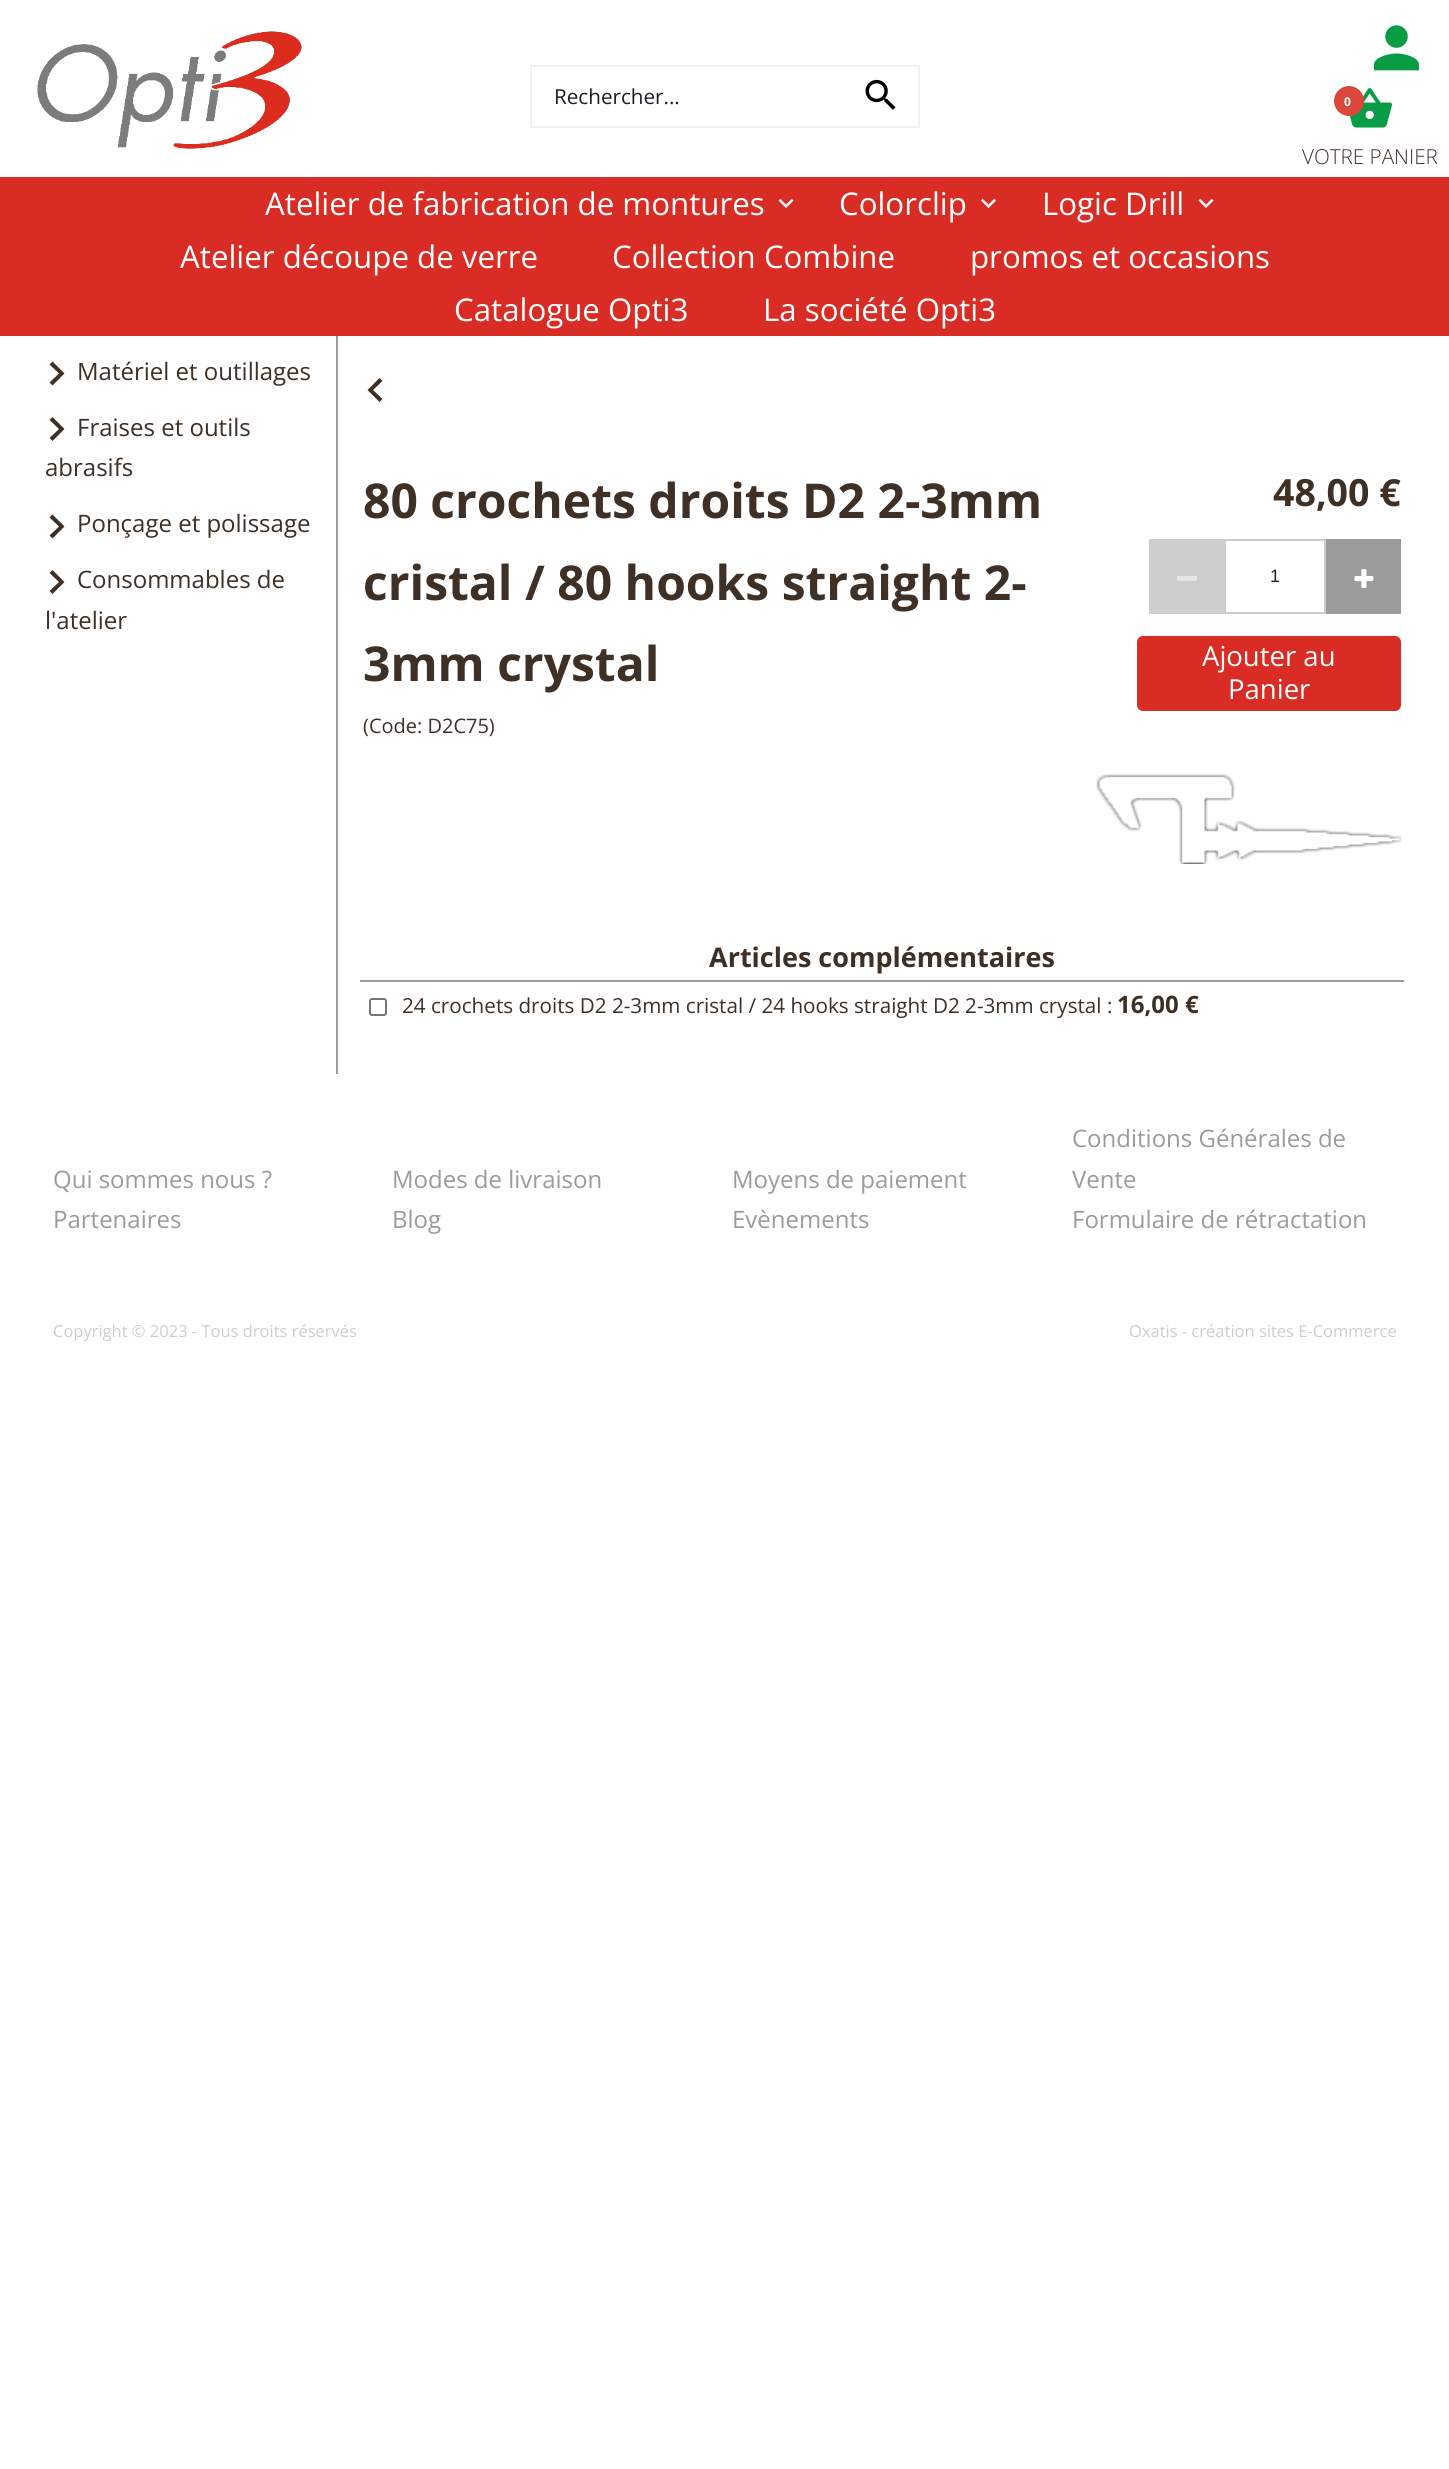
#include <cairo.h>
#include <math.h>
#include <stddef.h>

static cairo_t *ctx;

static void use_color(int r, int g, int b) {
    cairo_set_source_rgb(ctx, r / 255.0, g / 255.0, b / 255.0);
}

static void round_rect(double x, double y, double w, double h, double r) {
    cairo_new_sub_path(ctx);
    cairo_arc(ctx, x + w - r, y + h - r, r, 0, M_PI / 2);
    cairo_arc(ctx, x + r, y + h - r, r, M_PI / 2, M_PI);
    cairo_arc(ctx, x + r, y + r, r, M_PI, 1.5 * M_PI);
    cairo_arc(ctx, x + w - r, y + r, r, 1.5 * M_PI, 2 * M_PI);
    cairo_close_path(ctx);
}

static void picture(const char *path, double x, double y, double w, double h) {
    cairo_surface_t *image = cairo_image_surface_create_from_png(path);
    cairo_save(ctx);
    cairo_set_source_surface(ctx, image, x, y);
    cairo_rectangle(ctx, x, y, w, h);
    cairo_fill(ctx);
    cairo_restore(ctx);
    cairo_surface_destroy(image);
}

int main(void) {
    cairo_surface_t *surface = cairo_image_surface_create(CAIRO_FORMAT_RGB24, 1449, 2469);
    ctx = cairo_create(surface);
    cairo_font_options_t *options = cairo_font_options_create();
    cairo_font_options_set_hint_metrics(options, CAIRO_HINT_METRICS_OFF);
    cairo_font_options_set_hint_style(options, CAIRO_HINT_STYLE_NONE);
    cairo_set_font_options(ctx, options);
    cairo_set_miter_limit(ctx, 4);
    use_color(255, 255, 255);
    cairo_paint(ctx);
    picture("img1.png", 37, 31, 265, 118);
    use_color(241, 241, 241);
    cairo_rectangle(ctx, 530, 65, 390, 2);
    cairo_fill(ctx);
    cairo_rectangle(ctx, 530, 126, 313, 2);
    cairo_fill(ctx);
    cairo_rectangle(ctx, 530, 65, 2, 63);
    cairo_fill(ctx);
    cairo_select_font_face(ctx, "Open Sans", CAIRO_FONT_SLANT_NORMAL, CAIRO_FONT_WEIGHT_NORMAL);
    cairo_set_font_size(ctx, 20.65);
    use_color(26, 31, 38);
    cairo_move_to(ctx, 554, 104);
    cairo_show_text(ctx, "Rechercher...");
    use_color(241, 241, 241);
    cairo_rectangle(ctx, 918, 65, 2, 63);
    cairo_fill(ctx);
    cairo_rectangle(ctx, 843, 126, 77, 2);
    cairo_fill(ctx);
    picture("img2.png", 865, 79, 31, 31);
    picture("img3.png", 1374, 25, 45, 46);
    picture("img4.png", 1349, 88, 43, 40);
    use_color(217, 72, 59);
    cairo_arc(ctx, 1349, 101, 15, 0, 2 * M_PI);
    cairo_fill(ctx);
    cairo_select_font_face(ctx, "Open Sans", CAIRO_FONT_SLANT_NORMAL, CAIRO_FONT_WEIGHT_BOLD);
    cairo_set_font_size(ctx, 12);
    use_color(255, 255, 255);
    cairo_move_to(ctx, 1344, 106);
    cairo_show_text(ctx, "0");
    cairo_select_font_face(ctx, "Open Sans Light", CAIRO_FONT_SLANT_NORMAL, CAIRO_FONT_WEIGHT_NORMAL);
    cairo_set_font_size(ctx, 20.65);
    use_color(62, 48, 36);
    cairo_move_to(ctx, 1302, 164);
    cairo_show_text(ctx, "VOTRE PANIER");
    use_color(216, 44, 36);
    cairo_rectangle(ctx, 0, 177, 1449, 159);
    cairo_fill(ctx);
    cairo_select_font_face(ctx, "Open Sans", CAIRO_FONT_SLANT_NORMAL, CAIRO_FONT_WEIGHT_NORMAL);
    cairo_set_font_size(ctx, 31.25);
    use_color(255, 255, 255);
    cairo_move_to(ctx, 265, 215);
    cairo_show_text(ctx, "Atelier de fabrication de montures");
    picture("img5.png", 778, 198, 16, 10);
    cairo_move_to(ctx, 839, 215);
    cairo_show_text(ctx, "Colorclip");
    picture("img6.png", 981, 198, 15, 10);
    cairo_move_to(ctx, 1042, 215);
    cairo_show_text(ctx, "Logic Drill");
    picture("img5.png", 1198, 198, 16, 10);
    cairo_move_to(ctx, 180, 268);
    cairo_show_text(ctx, "Atelier découpe de verre");
    cairo_move_to(ctx, 612, 268);
    cairo_show_text(ctx, "Collection Combine");
    cairo_move_to(ctx, 970, 268);
    cairo_show_text(ctx, "promos et occasions");
    cairo_move_to(ctx, 454, 321);
    cairo_show_text(ctx, "Catalogue Opti3");
    cairo_move_to(ctx, 763, 321);
    cairo_show_text(ctx, "La société Opti3");
    use_color(155, 155, 155);
    cairo_rectangle(ctx, 336, 336, 2, 738);
    cairo_fill(ctx);
    use_color(62, 48, 36);
    cairo_new_path(ctx);
    cairo_move_to(ctx, 52.5, 361.5);
    cairo_line_to(ctx, 49.5, 364.5);
    cairo_line_to(ctx, 59, 373.5);
    cairo_line_to(ctx, 49.5, 382.5);
    cairo_line_to(ctx, 52.5, 385.5);
    cairo_line_to(ctx, 64.5, 373.5);
    cairo_close_path(ctx);
    cairo_fill(ctx);
    cairo_set_font_size(ctx, 24);
    cairo_move_to(ctx, 77, 380);
    cairo_show_text(ctx, "Matériel et outillages");
    cairo_new_path(ctx);
    cairo_move_to(ctx, 52.5, 417);
    cairo_line_to(ctx, 49.5, 420);
    cairo_line_to(ctx, 59, 429);
    cairo_line_to(ctx, 49.5, 438);
    cairo_line_to(ctx, 52.5, 441);
    cairo_line_to(ctx, 64.5, 429);
    cairo_close_path(ctx);
    cairo_fill(ctx);
    cairo_move_to(ctx, 77, 436);
    cairo_show_text(ctx, "Fraises et outils");
    cairo_move_to(ctx, 45, 476);
    cairo_show_text(ctx, "abrasifs");
    cairo_new_path(ctx);
    cairo_move_to(ctx, 52.5, 514.5);
    cairo_line_to(ctx, 49.5, 517.5);
    cairo_line_to(ctx, 59, 526.5);
    cairo_line_to(ctx, 49.5, 535.5);
    cairo_line_to(ctx, 52.5, 538.5);
    cairo_line_to(ctx, 64.5, 526.5);
    cairo_close_path(ctx);
    cairo_fill(ctx);
    cairo_move_to(ctx, 77, 532);
    cairo_show_text(ctx, "Ponçage et polissage");
    cairo_new_path(ctx);
    cairo_move_to(ctx, 52.5, 570);
    cairo_line_to(ctx, 49.5, 573);
    cairo_line_to(ctx, 59, 582);
    cairo_line_to(ctx, 49.5, 591);
    cairo_line_to(ctx, 52.5, 594);
    cairo_line_to(ctx, 64.5, 582);
    cairo_close_path(ctx);
    cairo_fill(ctx);
    cairo_move_to(ctx, 77, 588);
    cairo_show_text(ctx, "Consommables de");
    cairo_move_to(ctx, 45, 629);
    cairo_show_text(ctx, "l'atelier");
    cairo_new_path(ctx);
    cairo_move_to(ctx, 382.5, 399);
    cairo_line_to(ctx, 373, 390);
    cairo_line_to(ctx, 382.5, 381);
    cairo_line_to(ctx, 379.5, 378);
    cairo_line_to(ctx, 367.5, 390);
    cairo_line_to(ctx, 379.5, 402);
    cairo_close_path(ctx);
    cairo_fill(ctx);
    cairo_select_font_face(ctx, "Open Sans", CAIRO_FONT_SLANT_NORMAL, CAIRO_FONT_WEIGHT_BOLD);
    cairo_set_font_size(ctx, 48);
    cairo_move_to(ctx, 363, 518);
    cairo_show_text(ctx, "80 crochets droits D2 2-3mm");
    cairo_move_to(ctx, 363, 600);
    cairo_show_text(ctx, "cristal / 80 hooks straight 2-");
    cairo_move_to(ctx, 363, 681);
    cairo_show_text(ctx, "3mm crystal");
    cairo_select_font_face(ctx, "Open Sans", CAIRO_FONT_SLANT_NORMAL, CAIRO_FONT_WEIGHT_NORMAL);
    cairo_set_font_size(ctx, 20);
    cairo_move_to(ctx, 363, 733);
    cairo_show_text(ctx, "(Code: D2C75)");
    cairo_select_font_face(ctx, "Open Sans", CAIRO_FONT_SLANT_NORMAL, CAIRO_FONT_WEIGHT_BOLD);
    cairo_set_font_size(ctx, 37.5);
    cairo_move_to(ctx, 1273, 506);
    cairo_show_text(ctx, "48,00 €");
    use_color(205, 205, 205);
    cairo_rectangle(ctx, 1149, 539, 75, 75);
    cairo_fill(ctx);
    use_color(230, 230, 230);
    cairo_rectangle(ctx, 1177, 576, 20, 5);
    cairo_fill(ctx);
    cairo_rectangle(ctx, 1225, 540, 100, 73);
    use_color(204, 204, 204);
    cairo_stroke(ctx);
    cairo_select_font_face(ctx, "Liberation Sans", CAIRO_FONT_SLANT_NORMAL, CAIRO_FONT_WEIGHT_NORMAL);
    cairo_set_font_size(ctx, 18);
    use_color(33, 33, 33);
    cairo_move_to(ctx, 1270, 582);
    cairo_show_text(ctx, "1");
    use_color(155, 155, 155);
    cairo_rectangle(ctx, 1326, 539, 75, 75);
    cairo_fill(ctx);
    picture("img7.png", 1354, 569, 20, 19);
    use_color(216, 44, 36);
    round_rect(1138, 637, 262, 73, 5);
    cairo_fill_preserve(ctx);
    cairo_stroke(ctx);
    cairo_select_font_face(ctx, "Open Sans", CAIRO_FONT_SLANT_NORMAL, CAIRO_FONT_WEIGHT_NORMAL);
    cairo_set_font_size(ctx, 27.5);
    use_color(255, 255, 255);
    cairo_move_to(ctx, 1202, 666);
    cairo_show_text(ctx, "Ajouter au");
    cairo_move_to(ctx, 1228, 699);
    cairo_show_text(ctx, "Panier");
    picture("img8.png", 1096, 774, 305, 90);
    use_color(155, 155, 155);
    cairo_rectangle(ctx, 360, 980, 1044, 2);
    cairo_fill(ctx);
    cairo_select_font_face(ctx, "Open Sans", CAIRO_FONT_SLANT_NORMAL, CAIRO_FONT_WEIGHT_BOLD);
    cairo_set_font_size(ctx, 27);
    use_color(62, 48, 36);
    cairo_move_to(ctx, 709, 967);
    cairo_show_text(ctx, "Articles complémentaires");
    round_rect(370, 999, 16, 16, 2);
    use_color(118, 118, 118);
    cairo_stroke(ctx);
    cairo_select_font_face(ctx, "Open Sans", CAIRO_FONT_SLANT_NORMAL, CAIRO_FONT_WEIGHT_NORMAL);
    cairo_set_font_size(ctx, 20.65);
    use_color(62, 48, 36);
    cairo_move_to(ctx, 402, 1013);
    cairo_show_text(ctx, "24 crochets droits D2 2-3mm cristal / 24 hooks straight D2 2-3mm crystal :");
    cairo_select_font_face(ctx, "Open Sans", CAIRO_FONT_SLANT_NORMAL, CAIRO_FONT_WEIGHT_BOLD);
    cairo_set_font_size(ctx, 24);
    cairo_move_to(ctx, 1117, 1013);
    cairo_show_text(ctx, "16,00 €");
    cairo_select_font_face(ctx, "Open Sans", CAIRO_FONT_SLANT_NORMAL, CAIRO_FONT_WEIGHT_NORMAL);
    use_color(155, 155, 155);
    cairo_move_to(ctx, 53, 1188);
    cairo_show_text(ctx, "Qui sommes nous ?");
    cairo_move_to(ctx, 392, 1188);
    cairo_show_text(ctx, "Modes de livraison");
    cairo_move_to(ctx, 732, 1188);
    cairo_show_text(ctx, "Moyens de paiement");
    cairo_move_to(ctx, 1072, 1147);
    cairo_show_text(ctx, "Conditions Générales de");
    cairo_move_to(ctx, 1072, 1188);
    cairo_show_text(ctx, "Vente");
    cairo_move_to(ctx, 53, 1228);
    cairo_show_text(ctx, "Partenaires");
    cairo_move_to(ctx, 392, 1228);
    cairo_show_text(ctx, "Blog");
    cairo_move_to(ctx, 732, 1228);
    cairo_show_text(ctx, "Evènements");
    cairo_move_to(ctx, 1072, 1228);
    cairo_show_text(ctx, "Formulaire de rétractation");
    cairo_set_font_size(ctx, 16.5);
    use_color(205, 205, 205);
    cairo_move_to(ctx, 53, 1337);
    cairo_show_text(ctx, "Copyright © 2023 - Tous droits réservés");
    cairo_move_to(ctx, 1129, 1337);
    cairo_show_text(ctx, "Oxatis - création sites E-Commerce");
    cairo_surface_write_to_png(surface, "result.png");
    cairo_font_options_destroy(options);
    cairo_destroy(ctx);
    cairo_surface_destroy(surface);
    return 0;
}
